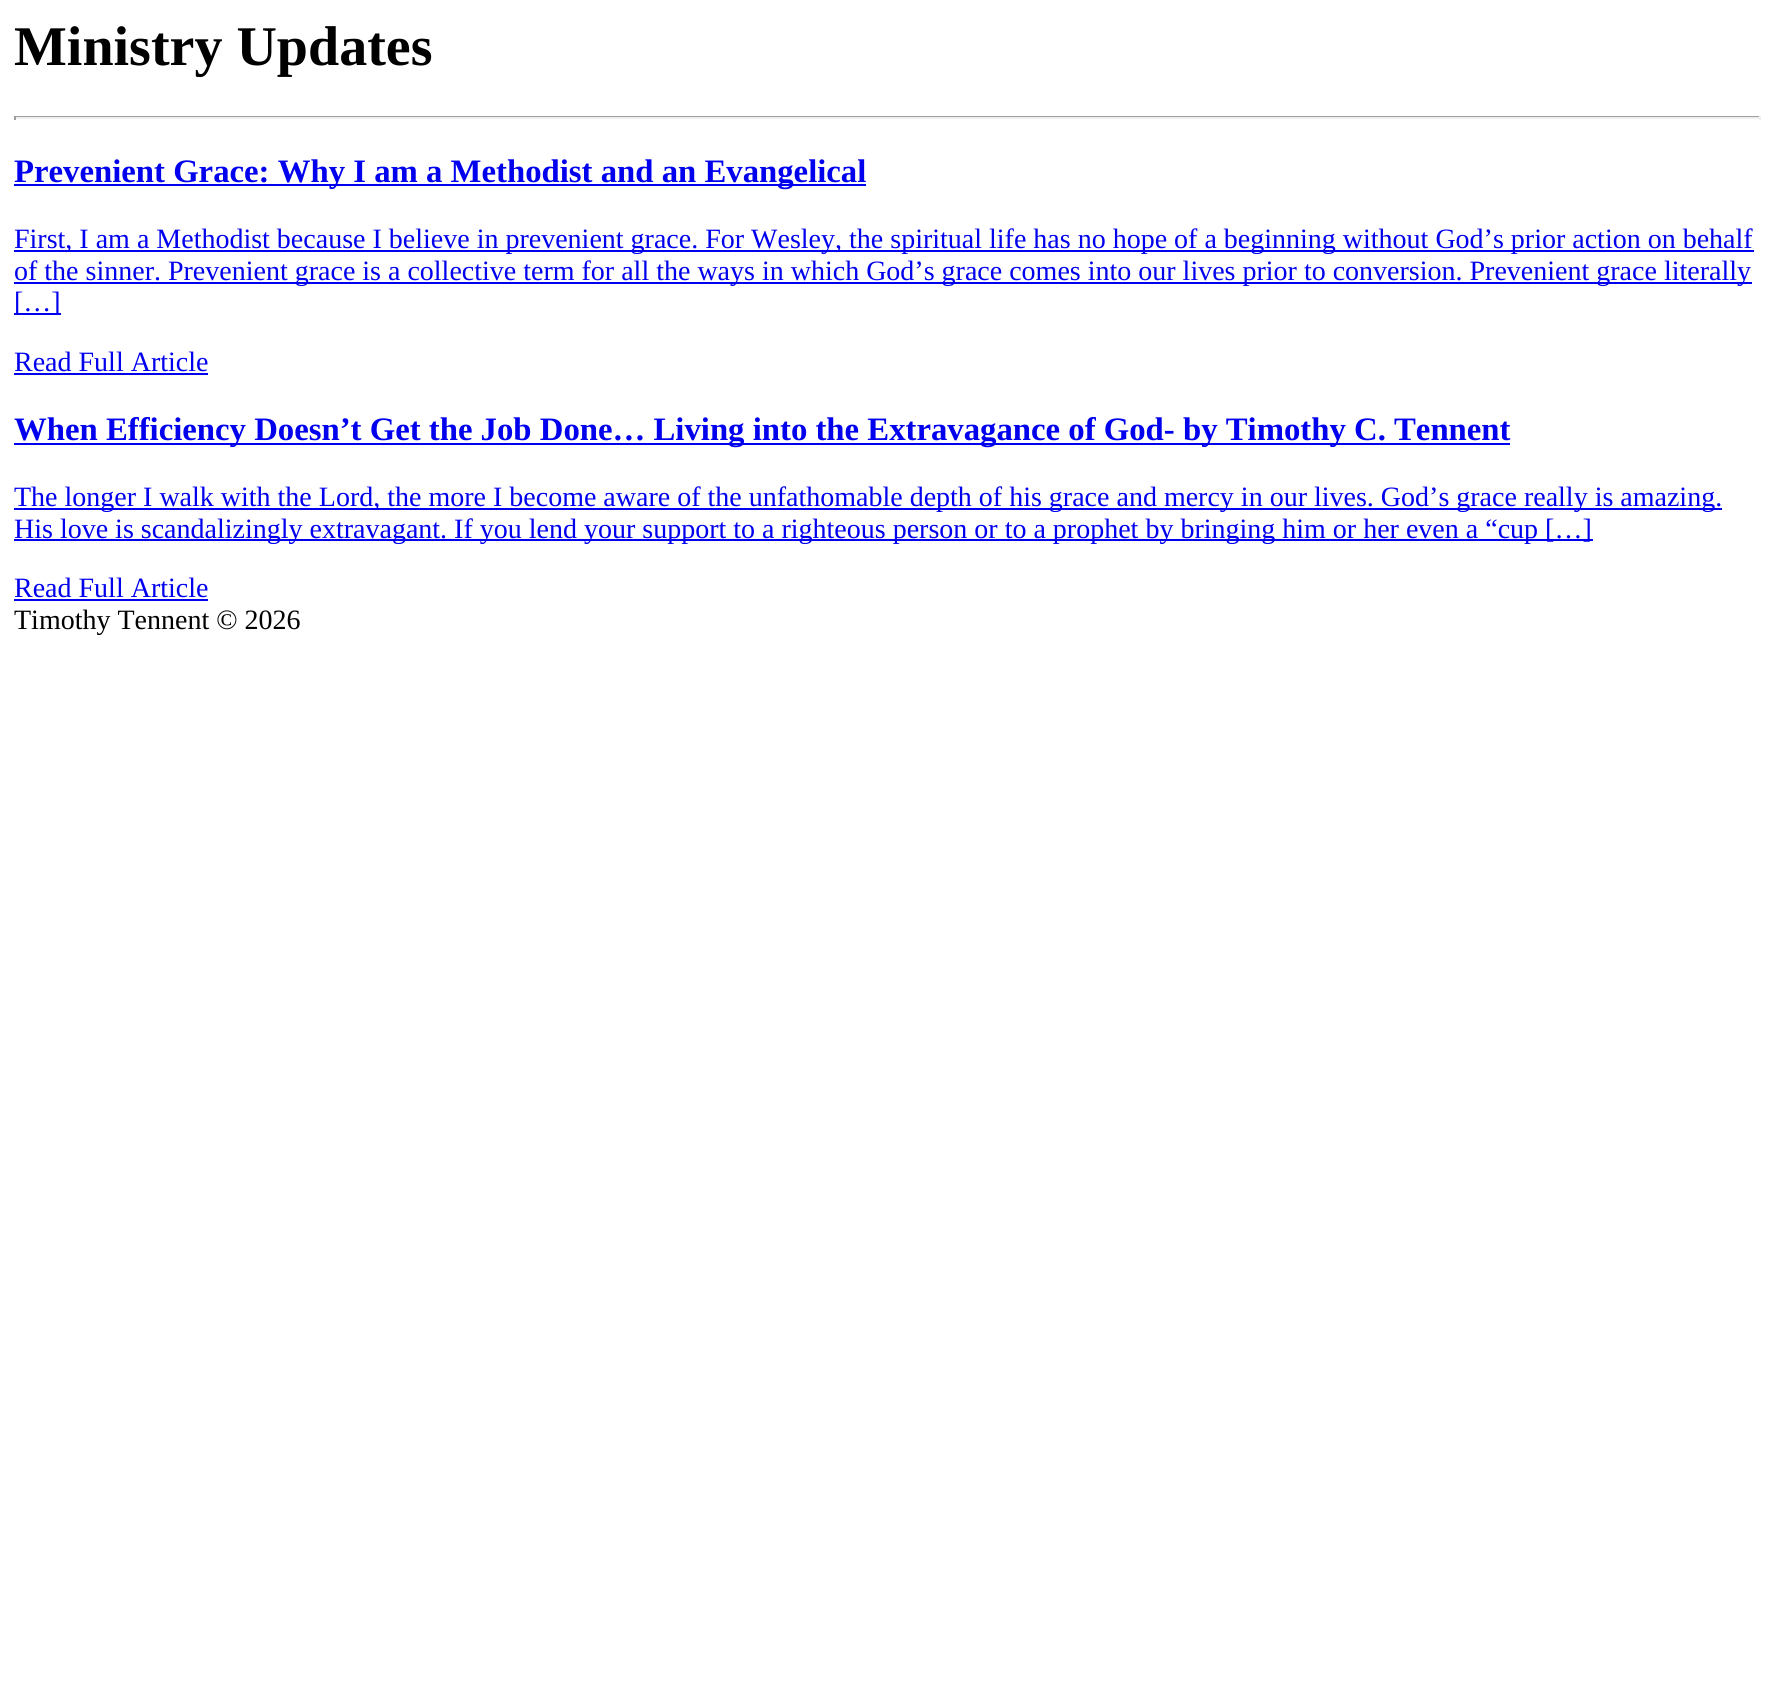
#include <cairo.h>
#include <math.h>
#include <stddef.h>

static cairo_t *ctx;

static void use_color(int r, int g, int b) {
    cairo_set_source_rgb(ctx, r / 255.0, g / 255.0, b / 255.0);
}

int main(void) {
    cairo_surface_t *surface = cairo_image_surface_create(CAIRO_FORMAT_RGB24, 1774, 1683);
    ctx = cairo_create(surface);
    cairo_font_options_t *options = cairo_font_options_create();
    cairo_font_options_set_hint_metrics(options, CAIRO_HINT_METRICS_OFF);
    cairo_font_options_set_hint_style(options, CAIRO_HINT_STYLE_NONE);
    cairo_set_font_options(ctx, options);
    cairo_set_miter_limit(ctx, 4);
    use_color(255, 255, 255);
    cairo_paint(ctx);
    cairo_select_font_face(ctx, "Liberation Serif", CAIRO_FONT_SLANT_NORMAL, CAIRO_FONT_WEIGHT_BOLD);
    cairo_set_font_size(ctx, 56);
    use_color(0, 0, 0);
    cairo_move_to(ctx, 14, 65);
    cairo_show_text(ctx, "Ministry Updates");
    use_color(159, 159, 159);
    cairo_rectangle(ctx, 14, 116, 1747, 1);
    cairo_fill(ctx);
    use_color(238, 238, 238);
    cairo_rectangle(ctx, 1759, 116, 2, 4);
    cairo_fill(ctx);
    cairo_rectangle(ctx, 14, 117, 1747, 2);
    cairo_fill(ctx);
    use_color(159, 159, 159);
    cairo_rectangle(ctx, 14, 116, 2, 4);
    cairo_fill(ctx);
    use_color(0, 0, 238);
    cairo_rectangle(ctx, 14, 184, 852, 2);
    cairo_fill(ctx);
    cairo_set_font_size(ctx, 32.75);
    cairo_move_to(ctx, 14, 182);
    cairo_show_text(ctx, "Prevenient Grace: Why I am a Methodist and an Evangelical");
    cairo_rectangle(ctx, 14, 250, 1740, 2);
    cairo_fill(ctx);
    cairo_select_font_face(ctx, "Liberation Serif", CAIRO_FONT_SLANT_NORMAL, CAIRO_FONT_WEIGHT_NORMAL);
    cairo_set_font_size(ctx, 28);
    cairo_move_to(ctx, 14, 248);
    cairo_show_text(ctx, "First, I am a Methodist because I believe in prevenient grace. For Wesley, the spiritual life has no hope of a beginning without God’s prior action on behalf");
    cairo_rectangle(ctx, 14, 282, 1738, 2);
    cairo_fill(ctx);
    cairo_move_to(ctx, 14, 280);
    cairo_show_text(ctx, "of the sinner. Prevenient grace is a collective term for all the ways in which God’s grace comes into our lives prior to conversion. Prevenient grace literally");
    cairo_rectangle(ctx, 14, 313, 47, 2);
    cairo_fill(ctx);
    cairo_move_to(ctx, 14, 311);
    cairo_show_text(ctx, "[…]");
    cairo_move_to(ctx, 14, 371);
    cairo_show_text(ctx, "Read Full Article");
    cairo_rectangle(ctx, 14, 373, 194, 2);
    cairo_fill(ctx);
    cairo_rectangle(ctx, 14, 443, 1496, 2);
    cairo_fill(ctx);
    cairo_select_font_face(ctx, "Liberation Serif", CAIRO_FONT_SLANT_NORMAL, CAIRO_FONT_WEIGHT_BOLD);
    cairo_set_font_size(ctx, 32.75);
    cairo_move_to(ctx, 14, 440);
    cairo_show_text(ctx, "When Efficiency Doesn’t Get the Job Done… Living into the Extravagance of God- by Timothy C. Tennent");
    cairo_rectangle(ctx, 14, 508, 1708, 2);
    cairo_fill(ctx);
    cairo_select_font_face(ctx, "Liberation Serif", CAIRO_FONT_SLANT_NORMAL, CAIRO_FONT_WEIGHT_NORMAL);
    cairo_set_font_size(ctx, 28);
    cairo_move_to(ctx, 14, 506);
    cairo_show_text(ctx, "The longer I walk with the Lord, the more I become aware of the unfathomable depth of his grace and mercy in our lives. God’s grace really is amazing.");
    cairo_rectangle(ctx, 14, 539, 1579, 2);
    cairo_fill(ctx);
    cairo_move_to(ctx, 14, 538);
    cairo_show_text(ctx, "His love is scandalizingly extravagant. If you lend your support to a righteous person or to a prophet by bringing him or her even a “cup […]");
    cairo_move_to(ctx, 14, 597);
    cairo_show_text(ctx, "Read Full Article");
    cairo_rectangle(ctx, 14, 599, 194, 2);
    cairo_fill(ctx);
    use_color(0, 0, 0);
    cairo_move_to(ctx, 14, 629);
    cairo_show_text(ctx, "Timothy Tennent © 2026");
    cairo_surface_write_to_png(surface, "result.png");
    cairo_font_options_destroy(options);
    cairo_destroy(ctx);
    cairo_surface_destroy(surface);
    return 0;
}
